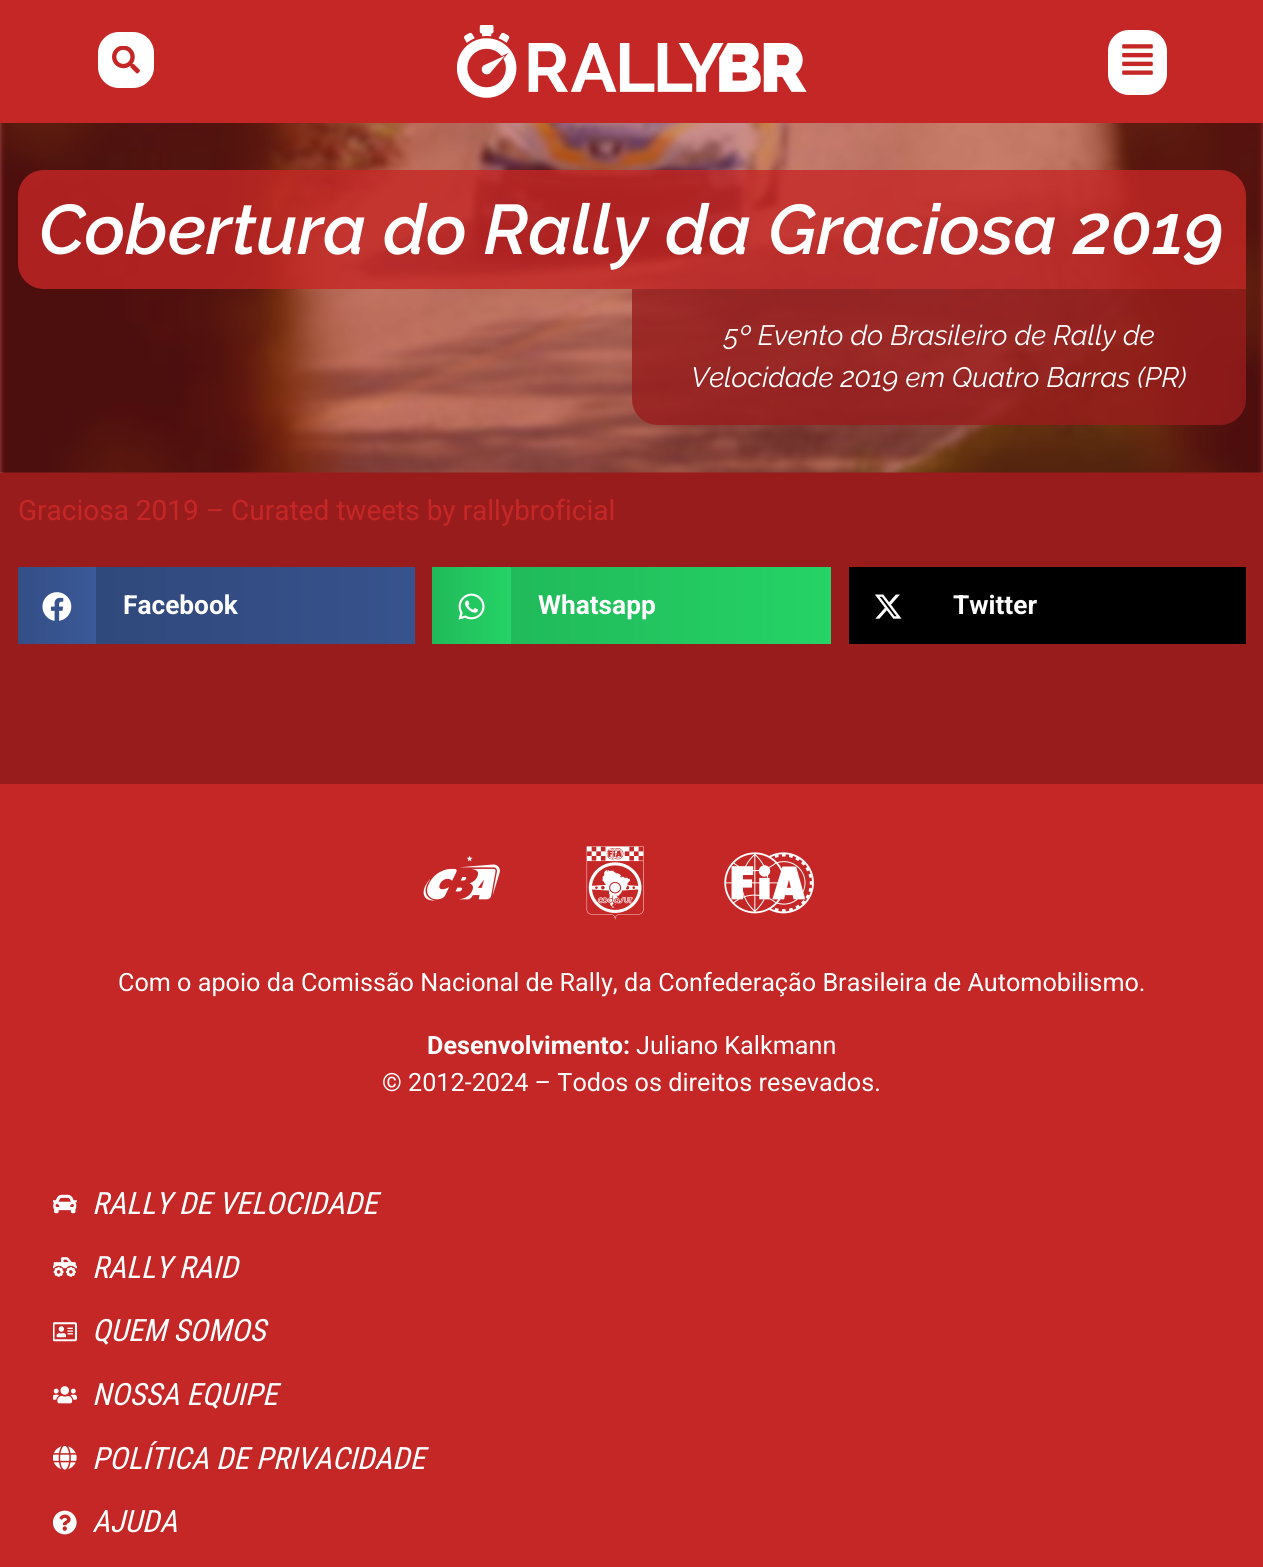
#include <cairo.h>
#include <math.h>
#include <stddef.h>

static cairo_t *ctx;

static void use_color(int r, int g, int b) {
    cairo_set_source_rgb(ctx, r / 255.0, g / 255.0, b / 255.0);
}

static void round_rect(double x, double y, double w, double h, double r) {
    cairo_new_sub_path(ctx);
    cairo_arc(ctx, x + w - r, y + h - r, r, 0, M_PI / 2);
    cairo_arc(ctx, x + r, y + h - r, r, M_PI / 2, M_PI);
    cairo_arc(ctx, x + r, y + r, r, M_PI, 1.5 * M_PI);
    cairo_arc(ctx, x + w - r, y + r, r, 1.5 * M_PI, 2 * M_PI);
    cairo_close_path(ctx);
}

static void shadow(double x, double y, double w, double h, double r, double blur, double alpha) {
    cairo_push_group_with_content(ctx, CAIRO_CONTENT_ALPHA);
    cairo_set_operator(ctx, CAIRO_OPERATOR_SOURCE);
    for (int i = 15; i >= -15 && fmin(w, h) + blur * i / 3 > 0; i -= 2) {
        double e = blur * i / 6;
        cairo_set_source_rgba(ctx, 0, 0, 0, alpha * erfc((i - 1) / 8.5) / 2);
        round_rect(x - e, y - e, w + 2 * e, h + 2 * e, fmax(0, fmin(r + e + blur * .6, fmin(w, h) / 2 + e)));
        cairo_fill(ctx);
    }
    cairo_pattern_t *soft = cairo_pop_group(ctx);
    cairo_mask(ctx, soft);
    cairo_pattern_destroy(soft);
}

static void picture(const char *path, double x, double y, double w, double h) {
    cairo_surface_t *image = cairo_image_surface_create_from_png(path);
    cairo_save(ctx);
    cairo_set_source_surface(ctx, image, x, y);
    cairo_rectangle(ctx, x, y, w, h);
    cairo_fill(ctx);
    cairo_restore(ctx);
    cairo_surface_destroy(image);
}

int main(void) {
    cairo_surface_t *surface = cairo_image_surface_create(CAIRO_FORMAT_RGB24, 1263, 1567);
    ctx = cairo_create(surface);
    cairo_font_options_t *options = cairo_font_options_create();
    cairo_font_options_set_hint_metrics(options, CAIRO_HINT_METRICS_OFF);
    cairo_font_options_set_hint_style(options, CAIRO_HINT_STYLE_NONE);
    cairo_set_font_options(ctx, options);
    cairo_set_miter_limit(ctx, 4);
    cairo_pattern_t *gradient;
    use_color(204, 142, 142);
    cairo_paint(ctx);
    use_color(153, 28, 28);
    shadow(0, 32, 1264, 490, 0, 3, 1);
    use_color(197, 39, 38);
    cairo_rectangle(ctx, 0, 0, 1263, 123);
    cairo_fill(ctx);
    use_color(255, 255, 255);
    round_rect(98, 32, 56, 56, 21);
    cairo_fill(ctx);
    picture("img1.png", 112, 46, 28, 28);
    picture("img2.png", 457, 25, 350, 73);
    round_rect(1108, 30, 59, 65, 21);
    cairo_fill(ctx);
    picture("img3.png", 1122, 44, 31, 31);
    picture("img4.png", 0, 123, 1263, 350);
    cairo_set_source_rgba(ctx, 0.773, 0.153, 0.149, 0.8);
    cairo_new_path(ctx);
    cairo_move_to(ctx, 44, 170);
    cairo_line_to(ctx, 1220, 170);
    cairo_curve_to(ctx, 1234.5, 170, 1246, 181.5, 1246, 196);
    cairo_line_to(ctx, 1246, 289);
    cairo_line_to(ctx, 44, 289);
    cairo_curve_to(ctx, 29.5, 289, 18, 277.5, 18, 263);
    cairo_line_to(ctx, 18, 196);
    cairo_curve_to(ctx, 18, 181.5, 29.5, 170, 44, 170);
    cairo_close_path(ctx);
    cairo_fill(ctx);
    cairo_select_font_face(ctx, "Raleway SemiBold", CAIRO_FONT_SLANT_ITALIC, CAIRO_FONT_WEIGHT_NORMAL);
    cairo_set_font_size(ctx, 70);
    use_color(255, 255, 255);
    cairo_move_to(ctx, 39, 254);
    cairo_show_text(ctx, "Cobertura do Rally da Graciosa 2019");
    cairo_set_source_rgba(ctx, 0.6, 0.11, 0.11, 0.8);
    cairo_new_path(ctx);
    cairo_move_to(ctx, 632, 289);
    cairo_line_to(ctx, 1246, 289);
    cairo_line_to(ctx, 1246, 399);
    cairo_curve_to(ctx, 1246, 413.5, 1234.5, 425, 1220, 425);
    cairo_line_to(ctx, 658, 425);
    cairo_curve_to(ctx, 643.5, 425, 632, 413.5, 632, 399);
    cairo_close_path(ctx);
    cairo_fill(ctx);
    cairo_select_font_face(ctx, "Raleway", CAIRO_FONT_SLANT_ITALIC, CAIRO_FONT_WEIGHT_NORMAL);
    cairo_set_font_size(ctx, 28);
    use_color(255, 255, 255);
    cairo_move_to(ctx, 724, 345);
    cairo_show_text(ctx, "5º Evento do Brasileiro de Rally de");
    cairo_move_to(ctx, 691, 387);
    cairo_show_text(ctx, "Velocidade 2019 em Quatro Barras (PR)");
    use_color(153, 28, 28);
    cairo_rectangle(ctx, 0, 473, 1263, 311);
    cairo_fill(ctx);
    cairo_select_font_face(ctx, "Roboto", CAIRO_FONT_SLANT_NORMAL, CAIRO_FONT_WEIGHT_NORMAL);
    use_color(197, 39, 38);
    cairo_move_to(ctx, 18, 520);
    cairo_show_text(ctx, "Graciosa 2019 – Curated tweets by rallybroficial");
    gradient = cairo_pattern_create_linear(18, 567, 96, 567);
    cairo_pattern_add_color_stop_rgba(gradient, 0, 0.204, 0.306, 0.525, 1);
    cairo_pattern_add_color_stop_rgba(gradient, 1, 0.231, 0.349, 0.596, 1);
    cairo_set_source(ctx, gradient);
    cairo_pattern_destroy(gradient);
    cairo_rectangle(ctx, 18, 567, 78, 77);
    cairo_fill(ctx);
    picture("img5.png", 42, 592, 30, 29);
    gradient = cairo_pattern_create_linear(96, 567, 415, 567);
    cairo_pattern_add_color_stop_rgba(gradient, 0, 0.188, 0.286, 0.486, 1);
    cairo_pattern_add_color_stop_rgba(gradient, 1, 0.216, 0.325, 0.553, 1);
    cairo_set_source(ctx, gradient);
    cairo_pattern_destroy(gradient);
    cairo_rectangle(ctx, 96, 567, 319, 77);
    cairo_fill(ctx);
    cairo_select_font_face(ctx, "Roboto", CAIRO_FONT_SLANT_NORMAL, CAIRO_FONT_WEIGHT_BOLD);
    cairo_set_font_size(ctx, 26.25);
    use_color(255, 255, 255);
    cairo_move_to(ctx, 123, 614);
    cairo_show_text(ctx, "Facebook");
    gradient = cairo_pattern_create_linear(432, 567, 511, 567);
    cairo_pattern_add_color_stop_rgba(gradient, 0, 0.129, 0.729, 0.353, 1);
    cairo_pattern_add_color_stop_rgba(gradient, 1, 0.145, 0.827, 0.4, 1);
    cairo_set_source(ctx, gradient);
    cairo_pattern_destroy(gradient);
    cairo_rectangle(ctx, 432, 567, 79, 77);
    cairo_fill(ctx);
    picture("img6.png", 458, 593, 27, 27);
    gradient = cairo_pattern_create_linear(511, 567, 831, 567);
    cairo_pattern_add_color_stop_rgba(gradient, 0, 0.129, 0.729, 0.353, 1);
    cairo_pattern_add_color_stop_rgba(gradient, 1, 0.145, 0.827, 0.4, 1);
    cairo_set_source(ctx, gradient);
    cairo_pattern_destroy(gradient);
    cairo_rectangle(ctx, 511, 567, 320, 77);
    cairo_fill(ctx);
    use_color(255, 255, 255);
    cairo_move_to(ctx, 538, 614);
    cairo_show_text(ctx, "Whatsapp");
    use_color(0, 0, 0);
    cairo_rectangle(ctx, 849, 567, 397, 77);
    cairo_fill(ctx);
    picture("img7.png", 875, 594, 27, 25);
    use_color(255, 255, 255);
    cairo_move_to(ctx, 953, 614);
    cairo_show_text(ctx, "Twitter");
    use_color(197, 39, 38);
    cairo_rectangle(ctx, 0, 784, 1263, 783);
    cairo_fill(ctx);
    picture("img8.png", 423, 855, 77, 46);
    picture("img9.png", 586, 846, 58, 74);
    picture("img10.png", 724, 852, 90, 62);
    cairo_select_font_face(ctx, "Roboto", CAIRO_FONT_SLANT_NORMAL, CAIRO_FONT_WEIGHT_NORMAL);
    cairo_set_font_size(ctx, 25.2);
    use_color(255, 255, 255);
    cairo_move_to(ctx, 118, 991);
    cairo_show_text(ctx, "Com o apoio da Comissão Nacional de Rally, da Confederação Brasileira de Automobilismo.");
    cairo_select_font_face(ctx, "Roboto", CAIRO_FONT_SLANT_NORMAL, CAIRO_FONT_WEIGHT_BOLD);
    cairo_move_to(ctx, 427, 1054);
    cairo_show_text(ctx, "Desenvolvimento:");
    cairo_select_font_face(ctx, "Roboto", CAIRO_FONT_SLANT_NORMAL, CAIRO_FONT_WEIGHT_NORMAL);
    cairo_move_to(ctx, 636, 1054);
    cairo_show_text(ctx, "Juliano Kalkmann");
    cairo_move_to(ctx, 382, 1091);
    cairo_show_text(ctx, "© 2012-2024 – Todos os direitos resevados.");
    picture("img11.png", 53, 1194, 24, 20);
    cairo_select_font_face(ctx, "Roboto Condensed", CAIRO_FONT_SLANT_ITALIC, CAIRO_FONT_WEIGHT_NORMAL);
    cairo_set_font_size(ctx, 30.75);
    cairo_move_to(ctx, 92, 1214);
    cairo_show_text(ctx, "RALLY DE VELOCIDADE");
    picture("img12.png", 53, 1257, 24, 20);
    cairo_move_to(ctx, 92, 1278);
    cairo_show_text(ctx, "RALLY RAID");
    picture("img13.png", 53, 1322, 24, 20);
    cairo_move_to(ctx, 92, 1341);
    cairo_show_text(ctx, "QUEM SOMOS");
    picture("img14.png", 53, 1386, 24, 18);
    cairo_move_to(ctx, 92, 1405);
    cairo_show_text(ctx, "NOSSA EQUIPE");
    picture("img15.png", 53, 1446, 24, 24);
    cairo_move_to(ctx, 92, 1469);
    cairo_show_text(ctx, "POLÍTICA DE PRIVACIDADE");
    picture("img16.png", 53, 1510, 24, 25);
    cairo_move_to(ctx, 92, 1532);
    cairo_show_text(ctx, "AJUDA");
    cairo_surface_write_to_png(surface, "result.png");
    cairo_font_options_destroy(options);
    cairo_destroy(ctx);
    cairo_surface_destroy(surface);
    return 0;
}
